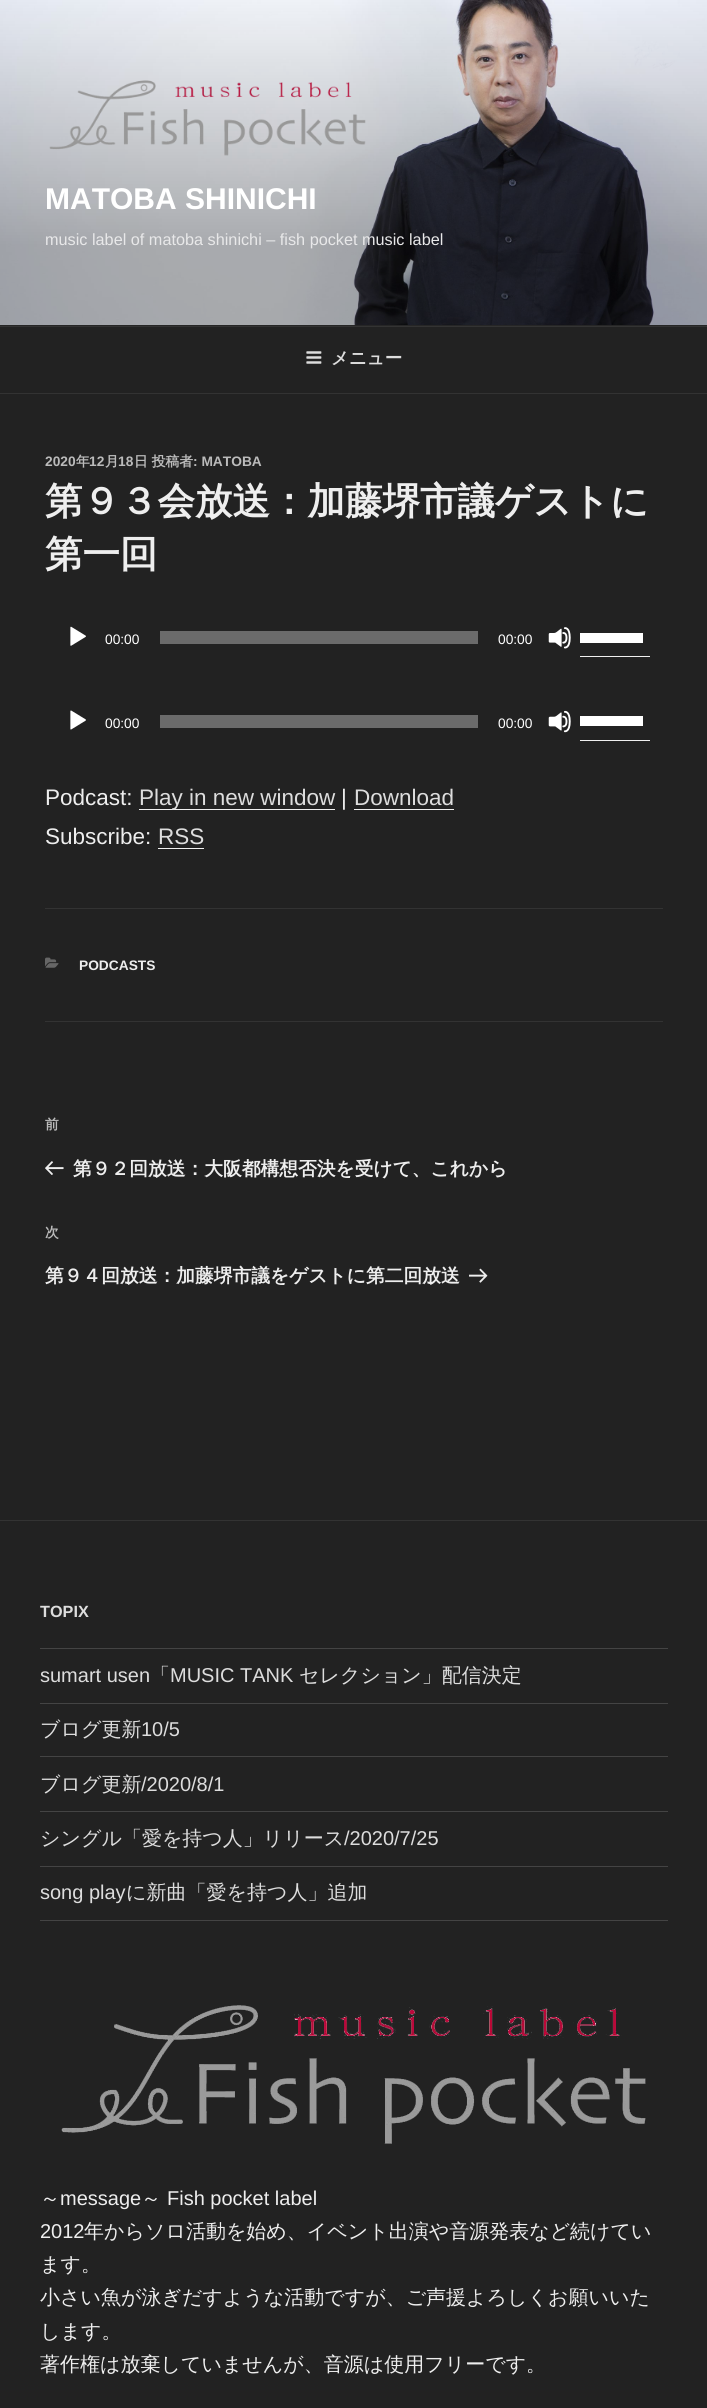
#include <cairo.h>
#include <math.h>
#include <stddef.h>

static cairo_t *ctx;

static void use_color(int r, int g, int b) {
    cairo_set_source_rgb(ctx, r / 255.0, g / 255.0, b / 255.0);
}

static void picture(const char *path, double x, double y, double w, double h) {
    cairo_surface_t *image = cairo_image_surface_create_from_png(path);
    cairo_save(ctx);
    cairo_set_source_surface(ctx, image, x, y);
    cairo_rectangle(ctx, x, y, w, h);
    cairo_fill(ctx);
    cairo_restore(ctx);
    cairo_surface_destroy(image);
}

int main(void) {
    cairo_surface_t *surface = cairo_image_surface_create(CAIRO_FORMAT_RGB24, 707, 2408);
    ctx = cairo_create(surface);
    cairo_font_options_t *options = cairo_font_options_create();
    cairo_font_options_set_hint_metrics(options, CAIRO_HINT_METRICS_OFF);
    cairo_font_options_set_hint_style(options, CAIRO_HINT_STYLE_NONE);
    cairo_set_font_options(ctx, options);
    cairo_set_miter_limit(ctx, 4);
    use_color(34, 34, 34);
    cairo_paint(ctx);
    use_color(38, 38, 38);
    cairo_rectangle(ctx, 0, 325, 707, 1);
    cairo_fill(ctx);
    picture("img1.png", 0, 0, 707, 325);
    picture("img2.png", 49, 80, 317, 76);
    cairo_select_font_face(ctx, "Liberation Sans", CAIRO_FONT_SLANT_NORMAL, CAIRO_FONT_WEIGHT_BOLD);
    cairo_set_font_size(ctx, 30);
    use_color(255, 255, 255);
    cairo_move_to(ctx, 45, 209);
    cairo_show_text(ctx, "MATOBA SHINICHI");
    cairo_select_font_face(ctx, "Liberation Sans", CAIRO_FONT_SLANT_NORMAL, CAIRO_FONT_WEIGHT_NORMAL);
    cairo_set_font_size(ctx, 16.25);
    use_color(232, 232, 233);
    cairo_move_to(ctx, 45, 245);
    cairo_show_text(ctx, "music label of matoba shinichi – fish pocket music label");
    use_color(51, 51, 51);
    cairo_rectangle(ctx, 0, 326, 707, 1);
    cairo_fill(ctx);
    cairo_rectangle(ctx, 0, 393, 707, 1);
    cairo_fill(ctx);
    picture("img3.png", 306, 351, 16, 13);
    cairo_select_font_face(ctx, "WenQuanYi Zen Hei", CAIRO_FONT_SLANT_NORMAL, CAIRO_FONT_WEIGHT_BOLD);
    cairo_set_font_size(ctx, 17.5);
    use_color(221, 221, 221);
    cairo_move_to(ctx, 331, 364);
    cairo_show_text(ctx, "メニュー");
    cairo_select_font_face(ctx, "Liberation Sans", CAIRO_FONT_SLANT_NORMAL, CAIRO_FONT_WEIGHT_BOLD);
    cairo_set_font_size(ctx, 13.75);
    use_color(187, 187, 187);
    cairo_move_to(ctx, 45, 466);
    cairo_show_text(ctx, "2020");
    cairo_select_font_face(ctx, "WenQuanYi Zen Hei", CAIRO_FONT_SLANT_NORMAL, CAIRO_FONT_WEIGHT_BOLD);
    cairo_move_to(ctx, 76, 466);
    cairo_show_text(ctx, "年");
    cairo_select_font_face(ctx, "Liberation Sans", CAIRO_FONT_SLANT_NORMAL, CAIRO_FONT_WEIGHT_BOLD);
    cairo_move_to(ctx, 89, 466);
    cairo_show_text(ctx, "12");
    cairo_select_font_face(ctx, "WenQuanYi Zen Hei", CAIRO_FONT_SLANT_NORMAL, CAIRO_FONT_WEIGHT_BOLD);
    cairo_move_to(ctx, 105, 466);
    cairo_show_text(ctx, "月");
    cairo_select_font_face(ctx, "Liberation Sans", CAIRO_FONT_SLANT_NORMAL, CAIRO_FONT_WEIGHT_BOLD);
    cairo_move_to(ctx, 118, 466);
    cairo_show_text(ctx, "18");
    cairo_select_font_face(ctx, "WenQuanYi Zen Hei", CAIRO_FONT_SLANT_NORMAL, CAIRO_FONT_WEIGHT_BOLD);
    cairo_move_to(ctx, 134, 466);
    cairo_show_text(ctx, "日 投稿者");
    cairo_select_font_face(ctx, "Liberation Sans", CAIRO_FONT_SLANT_NORMAL, CAIRO_FONT_WEIGHT_BOLD);
    cairo_move_to(ctx, 193, 466);
    cairo_show_text(ctx, ": MATOBA");
    cairo_select_font_face(ctx, "WenQuanYi Zen Hei", CAIRO_FONT_SLANT_NORMAL, CAIRO_FONT_WEIGHT_BOLD);
    cairo_set_font_size(ctx, 37.5);
    use_color(238, 238, 238);
    cairo_move_to(ctx, 45, 514);
    cairo_show_text(ctx, "第９３会放送：加藤堺市議ゲストに");
    cairo_move_to(ctx, 45, 567);
    cairo_show_text(ctx, "第一回");
    picture("img4.png", 70, 626, 16, 20);
    cairo_select_font_face(ctx, "Liberation Sans", CAIRO_FONT_SLANT_NORMAL, CAIRO_FONT_WEIGHT_NORMAL);
    cairo_set_font_size(ctx, 13.75);
    use_color(255, 255, 255);
    cairo_move_to(ctx, 105, 644);
    cairo_show_text(ctx, "00:00");
    use_color(107, 107, 107);
    cairo_rectangle(ctx, 160, 631, 318, 13);
    cairo_fill(ctx);
    use_color(255, 255, 255);
    cairo_move_to(ctx, 498, 644);
    cairo_show_text(ctx, "00:00");
    picture("img5.png", 548, 627, 23, 22);
    use_color(240, 240, 240);
    cairo_rectangle(ctx, 580, 656, 70, 1);
    cairo_fill(ctx);
    use_color(255, 255, 255);
    cairo_rectangle(ctx, 580, 633, 63, 10);
    cairo_fill(ctx);
    picture("img6.png", 70, 710, 16, 20);
    cairo_move_to(ctx, 105, 728);
    cairo_show_text(ctx, "00:00");
    use_color(107, 107, 107);
    cairo_rectangle(ctx, 160, 715, 318, 13);
    cairo_fill(ctx);
    use_color(255, 255, 255);
    cairo_move_to(ctx, 498, 728);
    cairo_show_text(ctx, "00:00");
    picture("img7.png", 548, 710, 23, 23);
    use_color(240, 240, 240);
    cairo_rectangle(ctx, 580, 740, 70, 1);
    cairo_fill(ctx);
    use_color(255, 255, 255);
    cairo_rectangle(ctx, 580, 716, 63, 10);
    cairo_fill(ctx);
    cairo_set_font_size(ctx, 22.5);
    use_color(238, 238, 238);
    cairo_move_to(ctx, 45, 805);
    cairo_show_text(ctx, "Podcast:");
    use_color(240, 240, 240);
    cairo_rectangle(ctx, 139, 809, 196, 1);
    cairo_fill(ctx);
    use_color(221, 221, 221);
    cairo_move_to(ctx, 139, 805);
    cairo_show_text(ctx, "Play in new window");
    use_color(238, 238, 238);
    cairo_move_to(ctx, 341, 805);
    cairo_show_text(ctx, "|");
    use_color(221, 221, 221);
    cairo_move_to(ctx, 354, 805);
    cairo_show_text(ctx, "Download");
    use_color(240, 240, 240);
    cairo_rectangle(ctx, 354, 809, 100, 1);
    cairo_fill(ctx);
    use_color(238, 238, 238);
    cairo_move_to(ctx, 45, 844);
    cairo_show_text(ctx, "Subscribe:");
    use_color(221, 221, 221);
    cairo_move_to(ctx, 158, 844);
    cairo_show_text(ctx, "RSS");
    use_color(240, 240, 240);
    cairo_rectangle(ctx, 158, 848, 46, 1);
    cairo_fill(ctx);
    use_color(51, 51, 51);
    cairo_rectangle(ctx, 45, 908, 618, 1);
    cairo_fill(ctx);
    cairo_rectangle(ctx, 45, 1021, 618, 1);
    cairo_fill(ctx);
    picture("img8.png", 45, 957, 14, 11);
    cairo_select_font_face(ctx, "Liberation Sans", CAIRO_FONT_SLANT_NORMAL, CAIRO_FONT_WEIGHT_BOLD);
    cairo_set_font_size(ctx, 13.75);
    use_color(238, 238, 238);
    cairo_move_to(ctx, 79, 970);
    cairo_show_text(ctx, "PODCASTS");
    cairo_select_font_face(ctx, "WenQuanYi Zen Hei", CAIRO_FONT_SLANT_NORMAL, CAIRO_FONT_WEIGHT_BOLD);
    use_color(187, 187, 187);
    cairo_move_to(ctx, 45, 1129);
    cairo_show_text(ctx, "前");
    picture("img9.png", 45, 1161, 19, 14);
    cairo_set_font_size(ctx, 18.75);
    use_color(238, 238, 238);
    cairo_move_to(ctx, 73, 1175);
    cairo_show_text(ctx, "第９２回放送：大阪都構想否決を受けて、これから");
    cairo_set_font_size(ctx, 13.75);
    use_color(187, 187, 187);
    cairo_move_to(ctx, 45, 1237);
    cairo_show_text(ctx, "次");
    cairo_set_font_size(ctx, 18.75);
    use_color(238, 238, 238);
    cairo_move_to(ctx, 45, 1282);
    cairo_show_text(ctx, "第９４回放送：加藤堺市議をゲストに第二回放送");
    picture("img10.png", 469, 1268, 19, 15);
    use_color(51, 51, 51);
    cairo_rectangle(ctx, 0, 1520, 707, 1);
    cairo_fill(ctx);
    cairo_select_font_face(ctx, "Liberation Sans", CAIRO_FONT_SLANT_NORMAL, CAIRO_FONT_WEIGHT_BOLD);
    cairo_set_font_size(ctx, 16.25);
    use_color(221, 221, 221);
    cairo_move_to(ctx, 40, 1617);
    cairo_show_text(ctx, "TOPIX");
    use_color(68, 68, 68);
    cairo_rectangle(ctx, 40, 1648, 628, 1);
    cairo_fill(ctx);
    cairo_rectangle(ctx, 40, 1703, 628, 1);
    cairo_fill(ctx);
    cairo_select_font_face(ctx, "Liberation Sans", CAIRO_FONT_SLANT_NORMAL, CAIRO_FONT_WEIGHT_NORMAL);
    cairo_set_font_size(ctx, 20);
    use_color(221, 221, 221);
    cairo_move_to(ctx, 40, 1682);
    cairo_show_text(ctx, "sumart usen");
    cairo_select_font_face(ctx, "WenQuanYi Zen Hei Medium", CAIRO_FONT_SLANT_NORMAL, CAIRO_FONT_WEIGHT_NORMAL);
    cairo_move_to(ctx, 150, 1682);
    cairo_show_text(ctx, "「");
    cairo_select_font_face(ctx, "Liberation Sans", CAIRO_FONT_SLANT_NORMAL, CAIRO_FONT_WEIGHT_NORMAL);
    cairo_move_to(ctx, 170, 1682);
    cairo_show_text(ctx, "MUSIC TANK");
    cairo_select_font_face(ctx, "WenQuanYi Zen Hei Medium", CAIRO_FONT_SLANT_NORMAL, CAIRO_FONT_WEIGHT_NORMAL);
    cairo_move_to(ctx, 299, 1682);
    cairo_show_text(ctx, "セレクション」配信決定");
    use_color(68, 68, 68);
    cairo_rectangle(ctx, 40, 1756, 628, 1);
    cairo_fill(ctx);
    use_color(221, 221, 221);
    cairo_move_to(ctx, 40, 1736);
    cairo_show_text(ctx, "ブログ更新");
    cairo_select_font_face(ctx, "Liberation Sans", CAIRO_FONT_SLANT_NORMAL, CAIRO_FONT_WEIGHT_NORMAL);
    cairo_move_to(ctx, 141, 1736);
    cairo_show_text(ctx, "10/5");
    use_color(68, 68, 68);
    cairo_rectangle(ctx, 40, 1811, 628, 1);
    cairo_fill(ctx);
    cairo_select_font_face(ctx, "WenQuanYi Zen Hei Medium", CAIRO_FONT_SLANT_NORMAL, CAIRO_FONT_WEIGHT_NORMAL);
    use_color(221, 221, 221);
    cairo_move_to(ctx, 40, 1791);
    cairo_show_text(ctx, "ブログ更新");
    cairo_select_font_face(ctx, "Liberation Sans", CAIRO_FONT_SLANT_NORMAL, CAIRO_FONT_WEIGHT_NORMAL);
    cairo_move_to(ctx, 141, 1791);
    cairo_show_text(ctx, "/2020/8/1");
    use_color(68, 68, 68);
    cairo_rectangle(ctx, 40, 1866, 628, 1);
    cairo_fill(ctx);
    cairo_select_font_face(ctx, "WenQuanYi Zen Hei Medium", CAIRO_FONT_SLANT_NORMAL, CAIRO_FONT_WEIGHT_NORMAL);
    use_color(221, 221, 221);
    cairo_move_to(ctx, 40, 1845);
    cairo_show_text(ctx, "シングル「愛を持つ人」リリース");
    cairo_select_font_face(ctx, "Liberation Sans", CAIRO_FONT_SLANT_NORMAL, CAIRO_FONT_WEIGHT_NORMAL);
    cairo_move_to(ctx, 344, 1845);
    cairo_show_text(ctx, "/2020/7/25");
    use_color(68, 68, 68);
    cairo_rectangle(ctx, 40, 1920, 628, 1);
    cairo_fill(ctx);
    use_color(221, 221, 221);
    cairo_move_to(ctx, 40, 1899);
    cairo_show_text(ctx, "song play");
    cairo_select_font_face(ctx, "WenQuanYi Zen Hei Medium", CAIRO_FONT_SLANT_NORMAL, CAIRO_FONT_WEIGHT_NORMAL);
    cairo_move_to(ctx, 126, 1899);
    cairo_show_text(ctx, "に新曲「愛を持つ人」追加");
    picture("img11.png", 61, 2005, 585, 139);
    use_color(238, 238, 238);
    cairo_move_to(ctx, 40, 2205);
    cairo_show_text(ctx, "～");
    cairo_select_font_face(ctx, "Liberation Sans", CAIRO_FONT_SLANT_NORMAL, CAIRO_FONT_WEIGHT_NORMAL);
    cairo_move_to(ctx, 60, 2205);
    cairo_show_text(ctx, "message");
    cairo_select_font_face(ctx, "WenQuanYi Zen Hei Medium", CAIRO_FONT_SLANT_NORMAL, CAIRO_FONT_WEIGHT_NORMAL);
    cairo_move_to(ctx, 141, 2205);
    cairo_show_text(ctx, "～");
    cairo_select_font_face(ctx, "Liberation Sans", CAIRO_FONT_SLANT_NORMAL, CAIRO_FONT_WEIGHT_NORMAL);
    cairo_move_to(ctx, 167, 2205);
    cairo_show_text(ctx, "Fish pocket label");
    cairo_move_to(ctx, 40, 2238);
    cairo_show_text(ctx, "2012");
    cairo_select_font_face(ctx, "WenQuanYi Zen Hei Medium", CAIRO_FONT_SLANT_NORMAL, CAIRO_FONT_WEIGHT_NORMAL);
    cairo_move_to(ctx, 84, 2238);
    cairo_show_text(ctx, "年からソロ活動を始め、イベント出演や音源発表など続けてい");
    cairo_move_to(ctx, 40, 2271);
    cairo_show_text(ctx, "ます。");
    cairo_move_to(ctx, 40, 2304);
    cairo_show_text(ctx, "小さい魚が泳ぎだすような活動ですが、ご声援よろしくお願いいた");
    cairo_move_to(ctx, 40, 2338);
    cairo_show_text(ctx, "します。");
    cairo_move_to(ctx, 40, 2371);
    cairo_show_text(ctx, "著作権は放棄していませんが、音源は使用フリーです。");
    cairo_surface_write_to_png(surface, "result.png");
    cairo_font_options_destroy(options);
    cairo_destroy(ctx);
    cairo_surface_destroy(surface);
    return 0;
}
